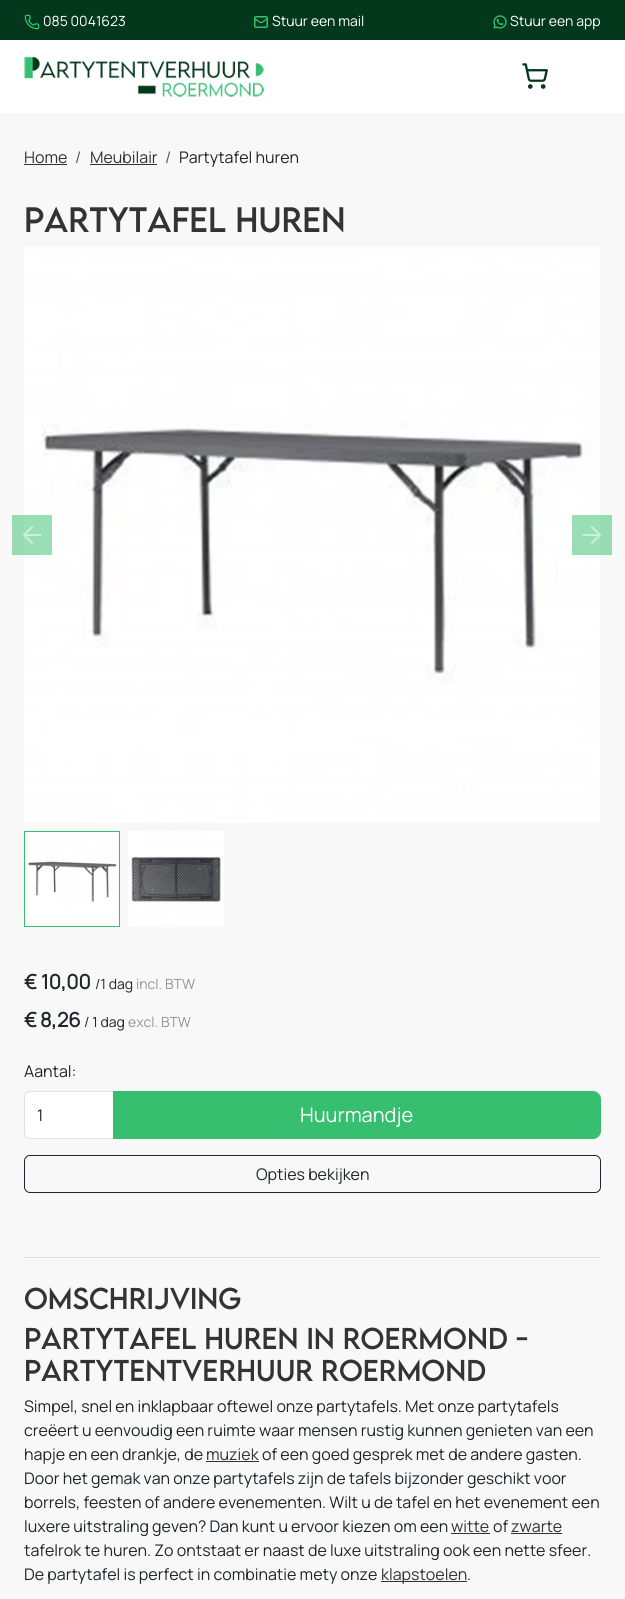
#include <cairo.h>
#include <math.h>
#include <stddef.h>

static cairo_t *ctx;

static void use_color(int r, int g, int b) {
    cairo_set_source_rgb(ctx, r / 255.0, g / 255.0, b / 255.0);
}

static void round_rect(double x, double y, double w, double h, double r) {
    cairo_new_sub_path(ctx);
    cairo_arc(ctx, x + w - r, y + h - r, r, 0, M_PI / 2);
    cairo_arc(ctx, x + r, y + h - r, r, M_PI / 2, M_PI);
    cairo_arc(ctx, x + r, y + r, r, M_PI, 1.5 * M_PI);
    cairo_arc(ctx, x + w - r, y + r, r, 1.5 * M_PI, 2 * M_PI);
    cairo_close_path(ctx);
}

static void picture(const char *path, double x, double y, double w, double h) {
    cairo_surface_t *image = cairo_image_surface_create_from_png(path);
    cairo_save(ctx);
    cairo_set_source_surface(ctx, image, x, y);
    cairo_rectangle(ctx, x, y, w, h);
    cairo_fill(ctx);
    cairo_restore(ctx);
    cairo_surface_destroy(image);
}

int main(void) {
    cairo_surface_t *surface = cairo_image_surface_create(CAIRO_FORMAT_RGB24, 625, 1599);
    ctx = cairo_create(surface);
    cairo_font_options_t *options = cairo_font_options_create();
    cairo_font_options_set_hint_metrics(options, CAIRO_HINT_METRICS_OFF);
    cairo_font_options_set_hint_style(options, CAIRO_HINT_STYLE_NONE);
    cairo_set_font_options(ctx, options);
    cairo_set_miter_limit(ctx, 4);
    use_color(248, 248, 248);
    cairo_paint(ctx);
    use_color(255, 255, 255);
    cairo_rectangle(ctx, 0, 40, 625, 73);
    cairo_fill(ctx);
    use_color(4, 56, 28);
    cairo_rectangle(ctx, 0, 0, 625, 40);
    cairo_fill(ctx);
    picture("img1.png", 24, 14, 16, 16);
    cairo_select_font_face(ctx, "Manrope", CAIRO_FONT_SLANT_NORMAL, CAIRO_FONT_WEIGHT_NORMAL);
    cairo_set_font_size(ctx, 14);
    use_color(255, 255, 255);
    cairo_move_to(ctx, 43, 26);
    cairo_show_text(ctx, "085 0041623");
    cairo_move_to(ctx, 272, 26);
    cairo_show_text(ctx, "Stuur een mail");
    cairo_new_path(ctx);
    cairo_move_to(ctx, 267.5, 18.5);
    cairo_curve_to(ctx, 259.5, 24, 262.5, 24, 254.5, 18.5);
    use_color(54, 191, 111);
    cairo_set_line_width(ctx, 1.3);
    cairo_set_line_cap(ctx, CAIRO_LINE_CAP_ROUND);
    cairo_set_line_join(ctx, CAIRO_LINE_JOIN_ROUND);
    cairo_stroke(ctx);
    round_rect(254.75, 16.75, 12.5, 10.5, 1.25);
    cairo_set_line_width(ctx, 1.5);
    cairo_set_line_cap(ctx, CAIRO_LINE_CAP_BUTT);
    cairo_set_line_join(ctx, CAIRO_LINE_JOIN_MITER);
    cairo_stroke(ctx);
    picture("img2.png", 493, 15, 14, 14);
    use_color(255, 255, 255);
    cairo_move_to(ctx, 510, 26);
    cairo_show_text(ctx, "Stuur een app");
    picture("img3.png", 24, 56, 240, 41);
    picture("img4.png", 522, 63, 26, 26);
    cairo_set_font_size(ctx, 16);
    use_color(51, 51, 51);
    cairo_move_to(ctx, 24, 163);
    cairo_show_text(ctx, "Home");
    cairo_rectangle(ctx, 24, 164, 43, 1);
    cairo_fill(ctx);
    use_color(87, 90, 93);
    cairo_move_to(ctx, 75, 163);
    cairo_show_text(ctx, "/");
    use_color(51, 51, 51);
    cairo_move_to(ctx, 90, 163);
    cairo_show_text(ctx, "Meubilair");
    cairo_rectangle(ctx, 90, 164, 67, 1);
    cairo_fill(ctx);
    use_color(87, 90, 93);
    cairo_move_to(ctx, 165, 163);
    cairo_show_text(ctx, "/");
    use_color(33, 37, 41);
    cairo_move_to(ctx, 179, 163);
    cairo_show_text(ctx, "Partytafel huren");
    cairo_select_font_face(ctx, "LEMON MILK", CAIRO_FONT_SLANT_NORMAL, CAIRO_FONT_WEIGHT_NORMAL);
    cairo_set_font_size(ctx, 31.4);
    use_color(51, 51, 51);
    cairo_move_to(ctx, 24, 232);
    cairo_show_text(ctx, "Partytafel huren");
    picture("img5.png", 24, 247, 576, 576);
    cairo_set_source_rgba(ctx, 0.212, 0.749, 0.435, 0.5);
    cairo_rectangle(ctx, 12, 515, 40, 40);
    cairo_fill(ctx);
    picture("img6.png", 23, 526, 19, 18);
    cairo_rectangle(ctx, 572, 515, 40, 40);
    cairo_fill(ctx);
    picture("img7.png", 582, 526, 19, 18);
    cairo_rectangle(ctx, 24.5, 831.5, 95, 95);
    use_color(54, 191, 111);
    cairo_set_line_width(ctx, 1);
    cairo_stroke(ctx);
    picture("img8.png", 25, 832, 94, 94);
    picture("img9.png", 128, 831, 96, 96);
    cairo_select_font_face(ctx, "Manrope", CAIRO_FONT_SLANT_NORMAL, CAIRO_FONT_WEIGHT_BOLD);
    cairo_set_font_size(ctx, 20);
    use_color(33, 37, 41);
    cairo_move_to(ctx, 24, 989);
    cairo_show_text(ctx, "€ 10,00");
    cairo_select_font_face(ctx, "Manrope", CAIRO_FONT_SLANT_NORMAL, CAIRO_FONT_WEIGHT_NORMAL);
    cairo_set_font_size(ctx, 14);
    cairo_move_to(ctx, 95, 989);
    cairo_show_text(ctx, "/1 dag");
    use_color(149, 149, 149);
    cairo_move_to(ctx, 136, 989);
    cairo_show_text(ctx, "incl. BTW");
    cairo_select_font_face(ctx, "Manrope", CAIRO_FONT_SLANT_NORMAL, CAIRO_FONT_WEIGHT_BOLD);
    cairo_set_font_size(ctx, 20);
    use_color(33, 37, 41);
    cairo_move_to(ctx, 24, 1027);
    cairo_show_text(ctx, "€");
    cairo_move_to(ctx, 40, 1027);
    cairo_show_text(ctx, "8,26");
    cairo_select_font_face(ctx, "Manrope", CAIRO_FONT_SLANT_NORMAL, CAIRO_FONT_WEIGHT_NORMAL);
    cairo_set_font_size(ctx, 14);
    cairo_move_to(ctx, 84, 1027);
    cairo_show_text(ctx, "/ 1 dag");
    use_color(149, 149, 149);
    cairo_move_to(ctx, 128, 1027);
    cairo_show_text(ctx, "excl. BTW");
    cairo_set_font_size(ctx, 16);
    use_color(33, 37, 41);
    cairo_move_to(ctx, 24, 1077);
    cairo_show_text(ctx, "Aantal:");
    use_color(255, 255, 255);
    cairo_new_path(ctx);
    cairo_move_to(ctx, 30, 1091.5);
    cairo_line_to(ctx, 113.5, 1091.5);
    cairo_line_to(ctx, 113.5, 1138.5);
    cairo_line_to(ctx, 30, 1138.5);
    cairo_curve_to(ctx, 27, 1138.5, 24.5, 1136, 24.5, 1133);
    cairo_line_to(ctx, 24.5, 1097);
    cairo_curve_to(ctx, 24.5, 1094, 27, 1091.5, 30, 1091.5);
    cairo_close_path(ctx);
    cairo_fill_preserve(ctx);
    use_color(222, 226, 230);
    cairo_stroke(ctx);
    use_color(33, 37, 41);
    cairo_move_to(ctx, 37, 1121);
    cairo_show_text(ctx, "1");
    use_color(54, 191, 111);
    cairo_new_path(ctx);
    cairo_move_to(ctx, 113.5, 1091.5);
    cairo_line_to(ctx, 593, 1091.5);
    cairo_curve_to(ctx, 597, 1091.5, 600.5, 1095, 600.5, 1099);
    cairo_line_to(ctx, 600.5, 1131);
    cairo_curve_to(ctx, 600.5, 1135, 597, 1138.5, 593, 1138.5);
    cairo_line_to(ctx, 113.5, 1138.5);
    cairo_close_path(ctx);
    cairo_fill_preserve(ctx);
    cairo_stroke(ctx);
    cairo_set_font_size(ctx, 20);
    use_color(255, 255, 255);
    cairo_move_to(ctx, 300, 1122);
    cairo_show_text(ctx, "Huurmandje");
    round_rect(24.5, 1155.5, 576, 37, 5.5);
    use_color(33, 37, 41);
    cairo_stroke(ctx);
    cairo_set_font_size(ctx, 16);
    cairo_move_to(ctx, 256, 1180);
    cairo_show_text(ctx, "Opties bekijken");
    use_color(222, 226, 230);
    cairo_rectangle(ctx, 24, 1257, 577, 1);
    cairo_fill(ctx);
    cairo_select_font_face(ctx, "LEMON MILK", CAIRO_FONT_SLANT_NORMAL, CAIRO_FONT_WEIGHT_NORMAL);
    cairo_set_font_size(ctx, 26.8);
    use_color(51, 51, 51);
    cairo_move_to(ctx, 24, 1309);
    cairo_show_text(ctx, "Omschrijving");
    cairo_move_to(ctx, 24, 1349);
    cairo_show_text(ctx, "Partytafel huren in Roermond -");
    cairo_move_to(ctx, 24, 1381);
    cairo_show_text(ctx, "Partytentverhuur Roermond");
    cairo_select_font_face(ctx, "Manrope", CAIRO_FONT_SLANT_NORMAL, CAIRO_FONT_WEIGHT_NORMAL);
    cairo_set_font_size(ctx, 16);
    use_color(33, 37, 41);
    cairo_move_to(ctx, 24, 1412);
    cairo_show_text(ctx, "Simpel, snel en inklapbaar oftewel onze partytafels. Met onze partytafels");
    cairo_move_to(ctx, 24, 1436);
    cairo_show_text(ctx, "creëert u eenvoudig een ruimte waar mensen rustig kunnen genieten van een");
    cairo_move_to(ctx, 24, 1460);
    cairo_show_text(ctx, "hapje en een drankje, de");
    use_color(51, 51, 51);
    cairo_move_to(ctx, 206, 1460);
    cairo_show_text(ctx, "muziek");
    cairo_rectangle(ctx, 206, 1461, 53, 1);
    cairo_fill(ctx);
    use_color(33, 37, 41);
    cairo_move_to(ctx, 262, 1460);
    cairo_show_text(ctx, "of een goed gesprek met de andere gasten.");
    cairo_move_to(ctx, 24, 1484);
    cairo_show_text(ctx, "Door het gemak van onze partytafels zijn de tafels bijzonder geschikt voor");
    cairo_move_to(ctx, 24, 1508);
    cairo_show_text(ctx, "borrels, feesten of andere evenementen. Wilt u de tafel en het evenement een");
    cairo_move_to(ctx, 24, 1532);
    cairo_show_text(ctx, "luxere uitstraling geven? Dan kunt u ervoor kiezen om een");
    use_color(51, 51, 51);
    cairo_move_to(ctx, 451, 1532);
    cairo_show_text(ctx, "witte");
    cairo_rectangle(ctx, 451, 1533, 39, 1);
    cairo_fill(ctx);
    use_color(33, 37, 41);
    cairo_move_to(ctx, 493, 1532);
    cairo_show_text(ctx, "of");
    use_color(51, 51, 51);
    cairo_move_to(ctx, 511, 1532);
    cairo_show_text(ctx, "zwarte");
    cairo_rectangle(ctx, 511, 1533, 51, 1);
    cairo_fill(ctx);
    use_color(33, 37, 41);
    cairo_move_to(ctx, 24, 1556);
    cairo_show_text(ctx, "tafelrok te huren. Zo ontstaat er naast de luxe uitstraling ook een nette sfeer.");
    cairo_move_to(ctx, 24, 1580);
    cairo_show_text(ctx, "De partytafel is perfect in combinatie mety onze");
    use_color(51, 51, 51);
    cairo_rectangle(ctx, 381, 1581, 86, 1);
    cairo_fill(ctx);
    cairo_move_to(ctx, 381, 1580);
    cairo_show_text(ctx, "klapstoelen");
    use_color(33, 37, 41);
    cairo_move_to(ctx, 467, 1580);
    cairo_show_text(ctx, ".");
    cairo_surface_write_to_png(surface, "result.png");
    cairo_font_options_destroy(options);
    cairo_destroy(ctx);
    cairo_surface_destroy(surface);
    return 0;
}
